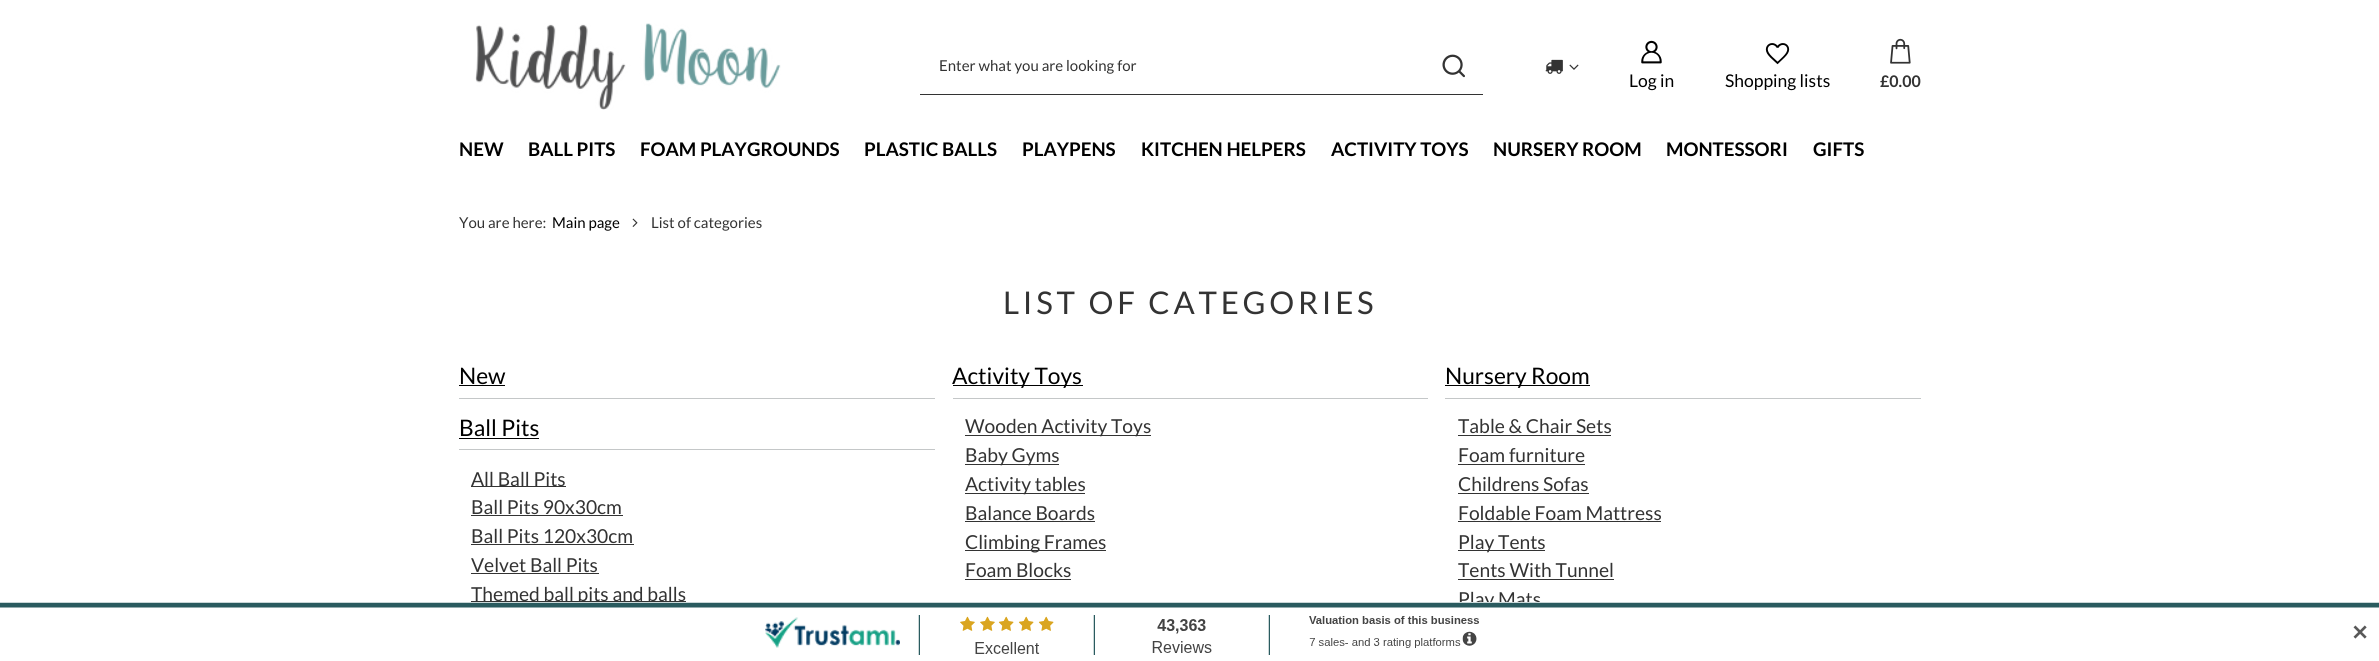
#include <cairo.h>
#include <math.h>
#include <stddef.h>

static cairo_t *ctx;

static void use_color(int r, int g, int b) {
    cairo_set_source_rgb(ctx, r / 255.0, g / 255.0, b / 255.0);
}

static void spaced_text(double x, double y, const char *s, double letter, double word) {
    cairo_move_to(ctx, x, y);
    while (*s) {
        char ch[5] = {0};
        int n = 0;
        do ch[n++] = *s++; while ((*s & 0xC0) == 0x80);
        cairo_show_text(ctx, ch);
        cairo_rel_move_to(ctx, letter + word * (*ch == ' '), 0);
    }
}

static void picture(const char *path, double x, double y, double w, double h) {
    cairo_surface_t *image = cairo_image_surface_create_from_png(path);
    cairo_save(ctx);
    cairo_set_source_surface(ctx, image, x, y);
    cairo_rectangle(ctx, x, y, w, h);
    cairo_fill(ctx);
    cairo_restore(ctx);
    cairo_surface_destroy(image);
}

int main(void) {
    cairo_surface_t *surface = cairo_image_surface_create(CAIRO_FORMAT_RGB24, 2379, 661);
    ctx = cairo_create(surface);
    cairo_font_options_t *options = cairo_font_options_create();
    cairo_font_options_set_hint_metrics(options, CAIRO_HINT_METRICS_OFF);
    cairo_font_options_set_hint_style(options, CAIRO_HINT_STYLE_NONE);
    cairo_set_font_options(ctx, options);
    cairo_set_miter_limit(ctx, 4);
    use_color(255, 255, 255);
    cairo_paint(ctx);
    picture("img1.png", 475, 23, 306, 87);
    use_color(51, 51, 51);
    cairo_rectangle(ctx, 920, 94, 563, 1);
    cairo_fill(ctx);
    cairo_select_font_face(ctx, "Lato", CAIRO_FONT_SLANT_NORMAL, CAIRO_FONT_WEIGHT_NORMAL);
    cairo_set_font_size(ctx, 15);
    cairo_move_to(ctx, 939, 71);
    cairo_show_text(ctx, "Enter what you are looking for");
    picture("img2.png", 1442, 54, 23, 24);
    picture("img3.png", 1545, 59, 18, 15);
    picture("img4.png", 1569, 64, 10, 6);
    picture("img5.png", 1641, 40, 21, 24);
    cairo_set_font_size(ctx, 17.5);
    use_color(0, 0, 0);
    cairo_move_to(ctx, 1629, 87);
    cairo_show_text(ctx, "Log in");
    picture("img6.png", 1765, 43, 25, 22);
    cairo_move_to(ctx, 1725, 87);
    cairo_show_text(ctx, "Shopping lists");
    picture("img7.png", 1890, 38, 21, 26);
    cairo_select_font_face(ctx, "Lato", CAIRO_FONT_SLANT_NORMAL, CAIRO_FONT_WEIGHT_BOLD);
    cairo_set_font_size(ctx, 16);
    use_color(51, 51, 51);
    cairo_move_to(ctx, 1880, 87);
    cairo_show_text(ctx, "£0.00");
    cairo_set_font_size(ctx, 18.75);
    use_color(0, 0, 0);
    cairo_move_to(ctx, 459, 156);
    cairo_show_text(ctx, "NEW");
    cairo_move_to(ctx, 528, 156);
    cairo_show_text(ctx, "BALL PITS");
    cairo_move_to(ctx, 640, 156);
    cairo_show_text(ctx, "FOAM PLAYGROUNDS");
    cairo_move_to(ctx, 864, 156);
    cairo_show_text(ctx, "PLASTIC BALLS");
    cairo_move_to(ctx, 1022, 156);
    cairo_show_text(ctx, "PLAYPENS");
    cairo_move_to(ctx, 1141, 156);
    cairo_show_text(ctx, "KITCHEN HELPERS");
    cairo_move_to(ctx, 1331, 156);
    cairo_show_text(ctx, "ACTIVITY TOYS");
    cairo_move_to(ctx, 1493, 156);
    cairo_show_text(ctx, "NURSERY ROOM");
    cairo_move_to(ctx, 1666, 156);
    cairo_show_text(ctx, "MONTESSORI");
    cairo_move_to(ctx, 1813, 156);
    cairo_show_text(ctx, "GIFTS");
    cairo_select_font_face(ctx, "Lato", CAIRO_FONT_SLANT_NORMAL, CAIRO_FONT_WEIGHT_NORMAL);
    cairo_set_font_size(ctx, 15);
    use_color(51, 51, 51);
    cairo_move_to(ctx, 459, 228);
    cairo_show_text(ctx, "You are here:");
    use_color(0, 0, 0);
    cairo_move_to(ctx, 552, 228);
    cairo_show_text(ctx, "Main page");
    picture("img8.png", 632, 218, 6, 9);
    use_color(51, 51, 51);
    cairo_move_to(ctx, 651, 228);
    cairo_show_text(ctx, "List of categories");
    cairo_set_font_size(ctx, 31.25);
    spaced_text(1003, 314, "LIST OF CATEGORIES", 3.75, 0);
    use_color(196, 199, 200);
    cairo_rectangle(ctx, 459, 398, 476, 1);
    cairo_fill(ctx);
    cairo_set_font_size(ctx, 22.75);
    use_color(0, 0, 0);
    cairo_move_to(ctx, 459, 384);
    cairo_show_text(ctx, "New");
    cairo_rectangle(ctx, 459, 385, 46, 1);
    cairo_fill(ctx);
    use_color(196, 199, 200);
    cairo_rectangle(ctx, 953, 398, 475, 1);
    cairo_fill(ctx);
    use_color(0, 0, 0);
    cairo_rectangle(ctx, 953, 385, 130, 1);
    cairo_fill(ctx);
    cairo_move_to(ctx, 952, 384);
    cairo_show_text(ctx, "Activity Toys");
    use_color(51, 51, 51);
    cairo_rectangle(ctx, 965, 435, 186, 1);
    cairo_fill(ctx);
    cairo_set_font_size(ctx, 19.25);
    cairo_move_to(ctx, 965, 433);
    cairo_show_text(ctx, "Wooden Activity Toys");
    cairo_rectangle(ctx, 965, 464, 94, 1);
    cairo_fill(ctx);
    cairo_move_to(ctx, 965, 462);
    cairo_show_text(ctx, "Baby Gyms");
    cairo_rectangle(ctx, 965, 493, 120, 1);
    cairo_fill(ctx);
    cairo_move_to(ctx, 965, 491);
    cairo_show_text(ctx, "Activity tables");
    cairo_move_to(ctx, 965, 520);
    cairo_show_text(ctx, "Balance Boards");
    cairo_rectangle(ctx, 965, 521, 130, 1);
    cairo_fill(ctx);
    cairo_rectangle(ctx, 965, 550, 141, 1);
    cairo_fill(ctx);
    cairo_move_to(ctx, 965, 549);
    cairo_show_text(ctx, "Climbing Frames");
    cairo_move_to(ctx, 965, 577);
    cairo_show_text(ctx, "Foam Blocks");
    cairo_rectangle(ctx, 965, 579, 106, 1);
    cairo_fill(ctx);
    use_color(196, 199, 200);
    cairo_rectangle(ctx, 1445, 398, 476, 1);
    cairo_fill(ctx);
    use_color(0, 0, 0);
    cairo_rectangle(ctx, 1445, 385, 145, 1);
    cairo_fill(ctx);
    cairo_set_font_size(ctx, 22.75);
    cairo_move_to(ctx, 1445, 384);
    cairo_show_text(ctx, "Nursery Room");
    cairo_set_font_size(ctx, 19.25);
    use_color(51, 51, 51);
    cairo_move_to(ctx, 1458, 433);
    cairo_show_text(ctx, "Table & Chair Sets");
    cairo_rectangle(ctx, 1458, 435, 153, 1);
    cairo_fill(ctx);
    cairo_move_to(ctx, 1458, 462);
    cairo_show_text(ctx, "Foam furniture");
    cairo_rectangle(ctx, 1458, 464, 127, 1);
    cairo_fill(ctx);
    cairo_move_to(ctx, 1458, 491);
    cairo_show_text(ctx, "Childrens Sofas");
    cairo_rectangle(ctx, 1458, 493, 131, 1);
    cairo_fill(ctx);
    cairo_move_to(ctx, 1458, 520);
    cairo_show_text(ctx, "Foldable Foam Mattress");
    cairo_rectangle(ctx, 1458, 521, 203, 1);
    cairo_fill(ctx);
    cairo_rectangle(ctx, 1458, 550, 87, 1);
    cairo_fill(ctx);
    cairo_move_to(ctx, 1458, 549);
    cairo_show_text(ctx, "Play Tents");
    cairo_move_to(ctx, 1458, 577);
    cairo_show_text(ctx, "Tents With Tunnel");
    cairo_rectangle(ctx, 1458, 579, 156, 1);
    cairo_fill(ctx);
    cairo_move_to(ctx, 1458, 606);
    cairo_show_text(ctx, "Play Mats");
    use_color(196, 199, 200);
    cairo_rectangle(ctx, 459, 449, 476, 1);
    cairo_fill(ctx);
    cairo_set_font_size(ctx, 22.75);
    use_color(0, 0, 0);
    cairo_move_to(ctx, 459, 436);
    cairo_show_text(ctx, "Ball Pits");
    cairo_rectangle(ctx, 459, 438, 80, 1);
    cairo_fill(ctx);
    use_color(51, 51, 51);
    cairo_rectangle(ctx, 471, 486, 95, 1);
    cairo_fill(ctx);
    cairo_set_font_size(ctx, 19.25);
    cairo_move_to(ctx, 471, 486);
    cairo_show_text(ctx, "All Ball Pits");
    cairo_move_to(ctx, 471, 514);
    cairo_show_text(ctx, "Ball Pits 90x30cm");
    cairo_rectangle(ctx, 471, 515, 152, 1);
    cairo_fill(ctx);
    cairo_move_to(ctx, 471, 543);
    cairo_show_text(ctx, "Ball Pits 120x30cm");
    cairo_rectangle(ctx, 471, 544, 163, 1);
    cairo_fill(ctx);
    cairo_move_to(ctx, 471, 572);
    cairo_show_text(ctx, "Velvet Ball Pits");
    cairo_rectangle(ctx, 471, 573, 128, 1);
    cairo_fill(ctx);
    cairo_rectangle(ctx, 471, 601, 215, 1);
    cairo_fill(ctx);
    cairo_move_to(ctx, 471, 601);
    cairo_show_text(ctx, "Themed ball pits and balls");
    picture("img9.png", 0, 602, 2379, 59);
    cairo_select_font_face(ctx, "DejaVu Sans", CAIRO_FONT_SLANT_NORMAL, CAIRO_FONT_WEIGHT_BOLD);
    cairo_set_font_size(ctx, 21);
    use_color(89, 89, 89);
    cairo_move_to(ctx, 2351, 640);
    cairo_show_text(ctx, "✕");
    cairo_surface_write_to_png(surface, "result.png");
    cairo_font_options_destroy(options);
    cairo_destroy(ctx);
    cairo_surface_destroy(surface);
    return 0;
}
